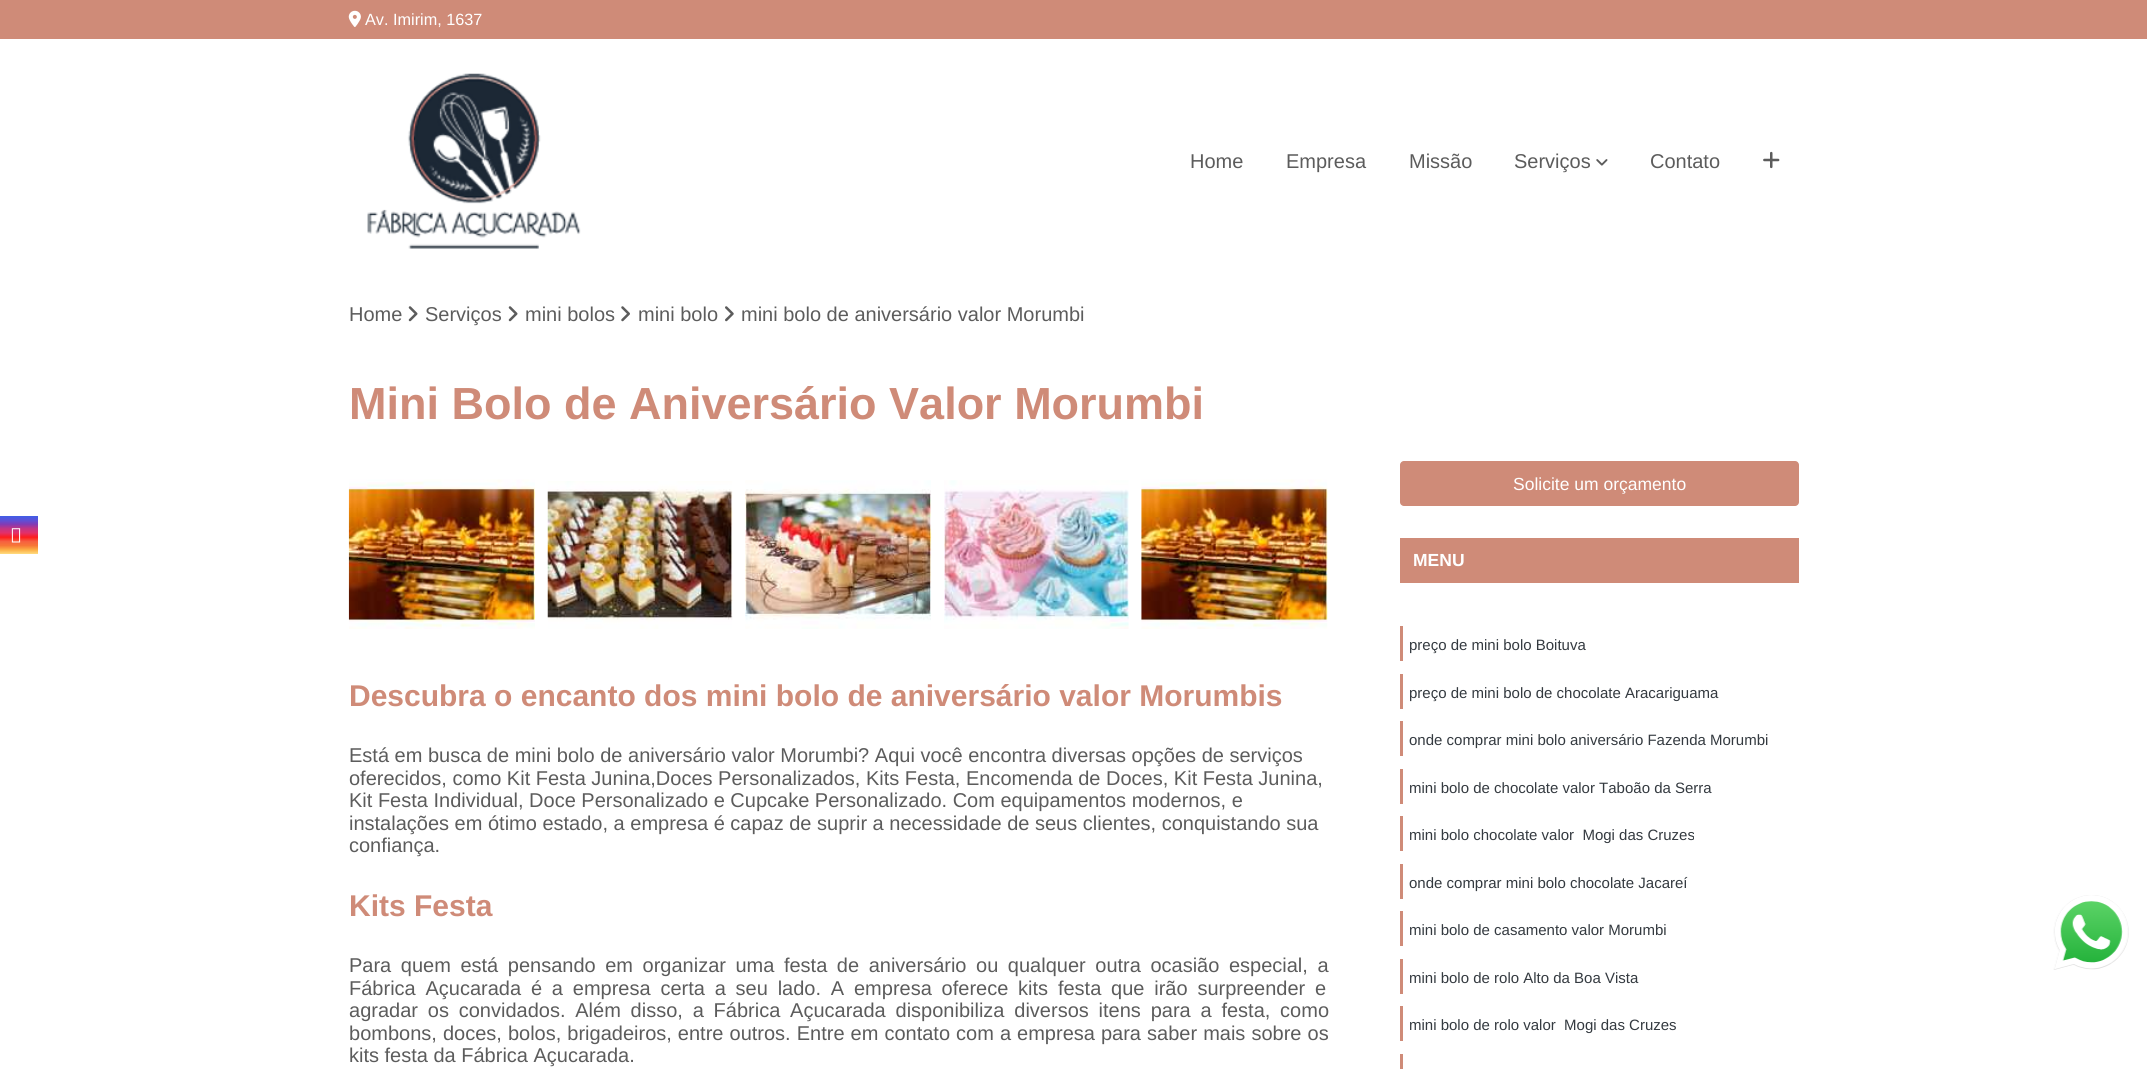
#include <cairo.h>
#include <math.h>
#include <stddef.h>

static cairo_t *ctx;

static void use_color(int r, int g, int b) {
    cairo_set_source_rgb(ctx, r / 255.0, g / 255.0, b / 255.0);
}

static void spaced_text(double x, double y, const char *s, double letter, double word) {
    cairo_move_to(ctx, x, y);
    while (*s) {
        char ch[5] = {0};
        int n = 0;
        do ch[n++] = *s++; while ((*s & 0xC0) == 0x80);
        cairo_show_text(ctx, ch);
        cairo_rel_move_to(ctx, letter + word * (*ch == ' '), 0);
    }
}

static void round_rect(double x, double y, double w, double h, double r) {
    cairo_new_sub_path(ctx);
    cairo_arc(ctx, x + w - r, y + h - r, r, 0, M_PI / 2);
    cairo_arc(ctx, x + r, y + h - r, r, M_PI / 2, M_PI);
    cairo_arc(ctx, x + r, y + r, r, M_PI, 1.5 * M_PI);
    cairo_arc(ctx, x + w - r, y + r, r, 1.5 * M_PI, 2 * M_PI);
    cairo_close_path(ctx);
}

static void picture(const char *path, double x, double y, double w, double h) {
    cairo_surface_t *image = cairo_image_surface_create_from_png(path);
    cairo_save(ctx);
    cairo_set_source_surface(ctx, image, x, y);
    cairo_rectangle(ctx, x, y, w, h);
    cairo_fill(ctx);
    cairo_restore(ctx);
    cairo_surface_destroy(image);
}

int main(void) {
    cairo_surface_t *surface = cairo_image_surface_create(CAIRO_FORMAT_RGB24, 2147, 1069);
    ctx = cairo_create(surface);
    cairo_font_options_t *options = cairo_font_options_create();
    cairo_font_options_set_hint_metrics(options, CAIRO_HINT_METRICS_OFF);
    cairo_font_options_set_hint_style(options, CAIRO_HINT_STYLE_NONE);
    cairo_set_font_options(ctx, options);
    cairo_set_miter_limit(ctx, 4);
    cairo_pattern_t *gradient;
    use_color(255, 255, 255);
    cairo_paint(ctx);
    use_color(207, 139, 120);
    cairo_rectangle(ctx, 0, 0, 2147, 39);
    cairo_fill(ctx);
    picture("img1.png", 348, 10, 13, 17);
    cairo_select_font_face(ctx, "Liberation Sans", CAIRO_FONT_SLANT_NORMAL, CAIRO_FONT_WEIGHT_NORMAL);
    cairo_set_font_size(ctx, 16.25);
    use_color(255, 255, 255);
    cairo_move_to(ctx, 365, 25);
    cairo_show_text(ctx, "Av. Imirim, 1637");
    picture("img2.png", 367, 73, 214, 176);
    cairo_set_font_size(ctx, 20);
    use_color(92, 92, 92);
    cairo_move_to(ctx, 1190, 168);
    cairo_show_text(ctx, "Home");
    cairo_move_to(ctx, 1286, 168);
    cairo_show_text(ctx, "Empresa");
    cairo_move_to(ctx, 1409, 168);
    cairo_show_text(ctx, "Missão");
    cairo_move_to(ctx, 1514, 168);
    cairo_show_text(ctx, "Serviços");
    picture("img3.png", 1596, 159, 12, 7);
    cairo_move_to(ctx, 1650, 168);
    cairo_show_text(ctx, "Contato");
    picture("img4.png", 1763, 151, 17, 18);
    cairo_move_to(ctx, 349, 321);
    cairo_show_text(ctx, "Home");
    picture("img5.png", 408, 306, 10, 16);
    cairo_move_to(ctx, 425, 321);
    cairo_show_text(ctx, "Serviços");
    picture("img5.png", 508, 306, 10, 16);
    cairo_move_to(ctx, 525, 321);
    cairo_show_text(ctx, "mini bolos");
    picture("img6.png", 621, 306, 9, 16);
    cairo_move_to(ctx, 638, 321);
    cairo_show_text(ctx, "mini bolo");
    picture("img7.png", 725, 306, 9, 16);
    cairo_move_to(ctx, 741, 321);
    cairo_show_text(ctx, "mini bolo de aniversário valor Morumbi");
    cairo_select_font_face(ctx, "Liberation Sans", CAIRO_FONT_SLANT_NORMAL, CAIRO_FONT_WEIGHT_BOLD);
    cairo_set_font_size(ctx, 45);
    use_color(207, 139, 120);
    cairo_move_to(ctx, 349, 419);
    cairo_show_text(ctx, "Mini Bolo de Aniversário Valor Morumbi");
    picture("img8.png", 348, 479, 187, 150);
    picture("img9.png", 547, 481, 186, 148);
    picture("img10.png", 745, 480, 187, 149);
    picture("img11.png", 944, 480, 185, 149);
    picture("img12.png", 1141, 479, 187, 150);
    cairo_set_font_size(ctx, 30);
    cairo_move_to(ctx, 349, 706);
    cairo_show_text(ctx, "Descubra o encanto dos mini bolo de aniversário valor Morumbis");
    cairo_select_font_face(ctx, "Liberation Sans", CAIRO_FONT_SLANT_NORMAL, CAIRO_FONT_WEIGHT_NORMAL);
    cairo_set_font_size(ctx, 20);
    use_color(92, 92, 92);
    cairo_move_to(ctx, 349, 762);
    cairo_show_text(ctx, "Está em busca de mini bolo de aniversário valor Morumbi? Aqui você encontra diversas opções de serviços");
    cairo_move_to(ctx, 349, 785);
    cairo_show_text(ctx, "oferecidos, como Kit Festa Junina,Doces Personalizados, Kits Festa, Encomenda de Doces, Kit Festa Junina,");
    cairo_move_to(ctx, 349, 807);
    cairo_show_text(ctx, "Kit Festa Individual, Doce Personalizado e Cupcake Personalizado. Com equipamentos modernos, e");
    cairo_move_to(ctx, 349, 830);
    cairo_show_text(ctx, "instalações em ótimo estado, a empresa é capaz de suprir a necessidade de seus clientes, conquistando sua");
    cairo_move_to(ctx, 349, 852);
    cairo_show_text(ctx, "confiança.");
    cairo_select_font_face(ctx, "Liberation Sans", CAIRO_FONT_SLANT_NORMAL, CAIRO_FONT_WEIGHT_BOLD);
    cairo_set_font_size(ctx, 30);
    use_color(207, 139, 120);
    cairo_move_to(ctx, 349, 916);
    cairo_show_text(ctx, "Kits Festa");
    cairo_select_font_face(ctx, "Liberation Sans", CAIRO_FONT_SLANT_NORMAL, CAIRO_FONT_WEIGHT_NORMAL);
    cairo_set_font_size(ctx, 20);
    use_color(92, 92, 92);
    spaced_text(349, 972, "Para quem está pensando em organizar uma festa de aniversário ou qualquer outra ocasião especial, a", 0, 4);
    spaced_text(349, 995, "Fábrica Açucarada é a empresa certa a seu lado. A empresa oferece kits festa que irão surpreender e", 0, 4.25);
    spaced_text(349, 1017, "agradar os convidados. Além disso, a Fábrica Açucarada disponibiliza diversos itens para a festa, como", 0, 4.25);
    spaced_text(349, 1040, "bombons, doces, bolos, brigadeiros, entre outros. Entre em contato com a empresa para saber mais sobre os", 0, 0.5);
    cairo_move_to(ctx, 349, 1062);
    cairo_show_text(ctx, "kits festa da Fábrica Açucarada.");
    use_color(207, 139, 120);
    round_rect(1400, 461, 399, 45, 4);
    cairo_fill(ctx);
    cairo_set_font_size(ctx, 17.5);
    use_color(255, 255, 255);
    cairo_move_to(ctx, 1513, 490);
    cairo_show_text(ctx, "Solicite um orçamento");
    use_color(207, 139, 120);
    cairo_rectangle(ctx, 1400, 538, 399, 45);
    cairo_fill(ctx);
    cairo_select_font_face(ctx, "Liberation Sans", CAIRO_FONT_SLANT_NORMAL, CAIRO_FONT_WEIGHT_BOLD);
    use_color(255, 255, 255);
    cairo_move_to(ctx, 1413, 566);
    cairo_show_text(ctx, "MENU");
    use_color(207, 139, 120);
    cairo_rectangle(ctx, 1400, 626, 3, 35);
    cairo_fill(ctx);
    cairo_select_font_face(ctx, "Liberation Sans", CAIRO_FONT_SLANT_NORMAL, CAIRO_FONT_WEIGHT_NORMAL);
    cairo_set_font_size(ctx, 15);
    use_color(52, 58, 64);
    cairo_move_to(ctx, 1409, 650);
    cairo_show_text(ctx, "preço de mini bolo Boituva");
    use_color(207, 139, 120);
    cairo_rectangle(ctx, 1400, 674, 3, 35);
    cairo_fill(ctx);
    use_color(52, 58, 64);
    cairo_move_to(ctx, 1409, 698);
    cairo_show_text(ctx, "preço de mini bolo de chocolate Aracariguama");
    use_color(207, 139, 120);
    cairo_rectangle(ctx, 1400, 721, 3, 35);
    cairo_fill(ctx);
    use_color(52, 58, 64);
    cairo_move_to(ctx, 1409, 745);
    cairo_show_text(ctx, "onde comprar mini bolo aniversário Fazenda Morumbi");
    use_color(207, 139, 120);
    cairo_rectangle(ctx, 1400, 769, 3, 35);
    cairo_fill(ctx);
    use_color(52, 58, 64);
    cairo_move_to(ctx, 1409, 793);
    cairo_show_text(ctx, "mini bolo de chocolate valor Taboão da Serra");
    use_color(207, 139, 120);
    cairo_rectangle(ctx, 1400, 816, 3, 35);
    cairo_fill(ctx);
    use_color(52, 58, 64);
    cairo_move_to(ctx, 1409, 840);
    cairo_show_text(ctx, "mini bolo chocolate valor  Mogi das Cruzes");
    use_color(207, 139, 120);
    cairo_rectangle(ctx, 1400, 864, 3, 35);
    cairo_fill(ctx);
    use_color(52, 58, 64);
    cairo_move_to(ctx, 1409, 888);
    cairo_show_text(ctx, "onde comprar mini bolo chocolate Jacareí");
    use_color(207, 139, 120);
    cairo_rectangle(ctx, 1400, 911, 3, 35);
    cairo_fill(ctx);
    use_color(52, 58, 64);
    cairo_move_to(ctx, 1409, 935);
    cairo_show_text(ctx, "mini bolo de casamento valor Morumbi");
    use_color(207, 139, 120);
    cairo_rectangle(ctx, 1400, 959, 3, 35);
    cairo_fill(ctx);
    use_color(52, 58, 64);
    cairo_move_to(ctx, 1409, 983);
    cairo_show_text(ctx, "mini bolo de rolo Alto da Boa Vista");
    use_color(207, 139, 120);
    cairo_rectangle(ctx, 1400, 1006, 3, 35);
    cairo_fill(ctx);
    use_color(52, 58, 64);
    cairo_move_to(ctx, 1409, 1030);
    cairo_show_text(ctx, "mini bolo de rolo valor  Mogi das Cruzes");
    use_color(207, 139, 120);
    cairo_rectangle(ctx, 1400, 1054, 3, 15);
    cairo_fill(ctx);
    gradient = cairo_pattern_create_linear(19, 516, 19, 554);
    cairo_pattern_add_color_stop_rgba(gradient, 0, 0.251, 0.365, 0.902, 1);
    cairo_pattern_add_color_stop_rgba(gradient, 0.11, 0.357, 0.318, 0.847, 1);
    cairo_pattern_add_color_stop_rgba(gradient, 0.22, 0.514, 0.227, 0.706, 1);
    cairo_pattern_add_color_stop_rgba(gradient, 0.33, 0.757, 0.208, 0.518, 1);
    cairo_pattern_add_color_stop_rgba(gradient, 0.44, 0.882, 0.188, 0.424, 1);
    cairo_pattern_add_color_stop_rgba(gradient, 0.56, 0.992, 0.114, 0.114, 1);
    cairo_pattern_add_color_stop_rgba(gradient, 0.67, 0.961, 0.376, 0.251, 1);
    cairo_pattern_add_color_stop_rgba(gradient, 0.78, 0.969, 0.467, 0.216, 1);
    cairo_pattern_add_color_stop_rgba(gradient, 0.89, 0.988, 0.686, 0.271, 1);
    cairo_pattern_add_color_stop_rgba(gradient, 1, 1, 0.863, 0.502, 1);
    cairo_set_source(ctx, gradient);
    cairo_pattern_destroy(gradient);
    cairo_rectangle(ctx, 0, 516, 38, 38);
    cairo_fill(ctx);
    picture("img13.png", 11, 528, 10, 15);
    picture("img14.png", 2053, 895, 76, 75);
    cairo_surface_write_to_png(surface, "result.png");
    cairo_font_options_destroy(options);
    cairo_destroy(ctx);
    cairo_surface_destroy(surface);
    return 0;
}
